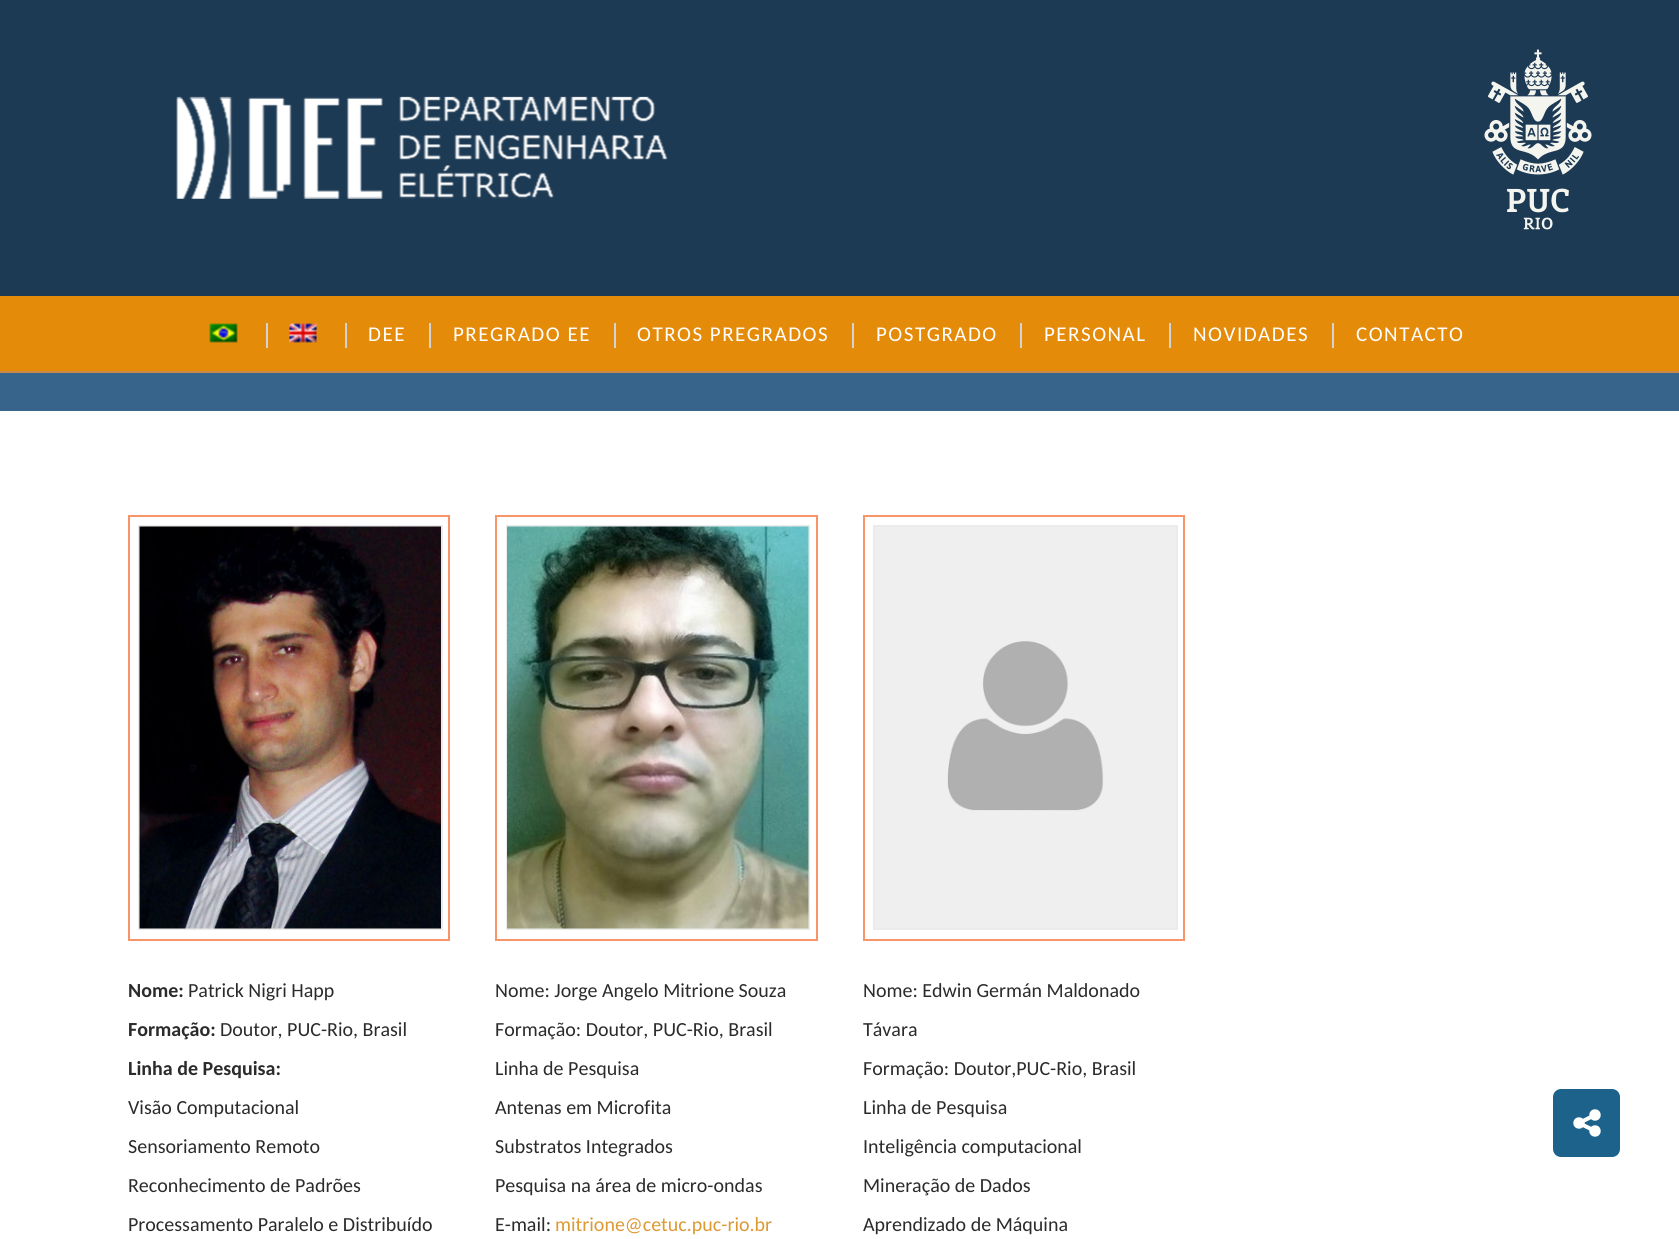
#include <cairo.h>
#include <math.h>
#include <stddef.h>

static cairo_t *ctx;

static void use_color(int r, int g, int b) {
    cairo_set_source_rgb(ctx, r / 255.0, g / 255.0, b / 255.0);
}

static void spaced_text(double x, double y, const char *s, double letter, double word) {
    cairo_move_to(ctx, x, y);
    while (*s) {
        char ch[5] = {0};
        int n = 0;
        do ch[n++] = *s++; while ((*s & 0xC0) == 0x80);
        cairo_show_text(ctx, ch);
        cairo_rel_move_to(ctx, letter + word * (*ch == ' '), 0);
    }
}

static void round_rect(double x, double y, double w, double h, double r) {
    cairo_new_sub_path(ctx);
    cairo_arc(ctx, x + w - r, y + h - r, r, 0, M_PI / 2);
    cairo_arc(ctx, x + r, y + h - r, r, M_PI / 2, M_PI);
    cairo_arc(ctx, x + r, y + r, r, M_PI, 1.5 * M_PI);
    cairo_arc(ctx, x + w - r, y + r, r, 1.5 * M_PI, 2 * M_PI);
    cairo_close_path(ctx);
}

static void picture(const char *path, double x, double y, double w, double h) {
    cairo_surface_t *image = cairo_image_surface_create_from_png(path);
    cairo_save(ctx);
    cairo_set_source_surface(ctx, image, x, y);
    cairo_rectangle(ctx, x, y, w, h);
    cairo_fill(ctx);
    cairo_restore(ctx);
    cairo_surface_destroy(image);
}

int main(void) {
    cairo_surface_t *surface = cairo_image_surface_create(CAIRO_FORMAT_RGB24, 1679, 1239);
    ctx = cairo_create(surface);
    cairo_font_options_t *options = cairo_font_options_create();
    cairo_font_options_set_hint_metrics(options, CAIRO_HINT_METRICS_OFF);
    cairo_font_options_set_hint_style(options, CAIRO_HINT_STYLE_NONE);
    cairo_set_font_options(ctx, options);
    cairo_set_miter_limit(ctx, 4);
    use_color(255, 255, 255);
    cairo_paint(ctx);
    use_color(29, 58, 84);
    cairo_rectangle(ctx, 0, 0, 1679, 296);
    cairo_fill(ctx);
    use_color(201, 136, 72);
    cairo_rectangle(ctx, 0, 371, 1679, 2);
    cairo_fill(ctx);
    picture("img1.png", 176, 96, 492, 103);
    picture("img2.png", 1484, 49, 108, 181);
    use_color(229, 139, 10);
    cairo_rectangle(ctx, 0, 296, 1679, 75);
    cairo_fill(ctx);
    use_color(210, 211, 213);
    cairo_rectangle(ctx, 266, 323, 2, 25);
    cairo_fill(ctx);
    picture("img3.png", 209, 323, 29, 20);
    cairo_rectangle(ctx, 345, 323, 2, 25);
    cairo_fill(ctx);
    picture("img4.png", 289, 323, 28, 20);
    cairo_rectangle(ctx, 429, 323, 2, 25);
    cairo_fill(ctx);
    cairo_select_font_face(ctx, "Carlito", CAIRO_FONT_SLANT_NORMAL, CAIRO_FONT_WEIGHT_NORMAL);
    cairo_set_font_size(ctx, 21);
    use_color(255, 255, 255);
    spaced_text(368, 341, "DEE", 1.5, 0);
    use_color(210, 211, 213);
    cairo_rectangle(ctx, 614, 323, 2, 25);
    cairo_fill(ctx);
    use_color(255, 255, 255);
    spaced_text(453, 341, "PREGRADO EE", 1.5, 0);
    use_color(210, 211, 213);
    cairo_rectangle(ctx, 852, 323, 2, 25);
    cairo_fill(ctx);
    use_color(255, 255, 255);
    spaced_text(637, 341, "OTROS PREGRADOS", 1.5, 0);
    use_color(210, 211, 213);
    cairo_rectangle(ctx, 1020, 323, 2, 25);
    cairo_fill(ctx);
    use_color(255, 255, 255);
    spaced_text(876, 341, "POSTGRADO", 1.5, 0);
    use_color(210, 211, 213);
    cairo_rectangle(ctx, 1169, 323, 2, 25);
    cairo_fill(ctx);
    use_color(255, 255, 255);
    spaced_text(1044, 341, "PERSONAL", 1.5, 0);
    use_color(210, 211, 213);
    cairo_rectangle(ctx, 1332, 323, 2, 25);
    cairo_fill(ctx);
    use_color(255, 255, 255);
    spaced_text(1193, 341, "NOVIDADES", 1.5, 0);
    spaced_text(1356, 341, "CONTACTO", 1.5, 0);
    use_color(54, 100, 139);
    cairo_rectangle(ctx, 0, 373, 1679, 38);
    cairo_fill(ctx);
    cairo_rectangle(ctx, 129, 516, 320, 424);
    use_color(247, 148, 104);
    cairo_stroke(ctx);
    cairo_rectangle(ctx, 139, 526, 303, 403);
    use_color(235, 235, 235);
    cairo_stroke(ctx);
    picture("img5.png", 139, 526, 302, 403);
    cairo_select_font_face(ctx, "Carlito", CAIRO_FONT_SLANT_NORMAL, CAIRO_FONT_WEIGHT_BOLD);
    cairo_set_font_size(ctx, 20);
    use_color(43, 43, 43);
    cairo_move_to(ctx, 128, 997);
    cairo_show_text(ctx, "Nome:");
    cairo_select_font_face(ctx, "Carlito", CAIRO_FONT_SLANT_NORMAL, CAIRO_FONT_WEIGHT_NORMAL);
    cairo_move_to(ctx, 188, 997);
    cairo_show_text(ctx, "Patrick Nigri Happ");
    cairo_select_font_face(ctx, "Carlito", CAIRO_FONT_SLANT_NORMAL, CAIRO_FONT_WEIGHT_BOLD);
    cairo_move_to(ctx, 128, 1036);
    cairo_show_text(ctx, "Formação:");
    cairo_select_font_face(ctx, "Carlito", CAIRO_FONT_SLANT_NORMAL, CAIRO_FONT_WEIGHT_NORMAL);
    cairo_move_to(ctx, 220, 1036);
    cairo_show_text(ctx, "Doutor, PUC-Rio, Brasil");
    cairo_select_font_face(ctx, "Carlito", CAIRO_FONT_SLANT_NORMAL, CAIRO_FONT_WEIGHT_BOLD);
    cairo_move_to(ctx, 128, 1075);
    cairo_show_text(ctx, "Linha de Pesquisa:");
    cairo_select_font_face(ctx, "Carlito", CAIRO_FONT_SLANT_NORMAL, CAIRO_FONT_WEIGHT_NORMAL);
    cairo_move_to(ctx, 128, 1114);
    cairo_show_text(ctx, "Visão Computacional");
    cairo_move_to(ctx, 128, 1153);
    cairo_show_text(ctx, "Sensoriamento Remoto");
    cairo_move_to(ctx, 128, 1192);
    cairo_show_text(ctx, "Reconhecimento de Padrões");
    cairo_move_to(ctx, 128, 1231);
    cairo_show_text(ctx, "Processamento Paralelo e Distribuído");
    cairo_rectangle(ctx, 496, 516, 321, 424);
    use_color(247, 148, 104);
    cairo_stroke(ctx);
    cairo_rectangle(ctx, 507, 526, 302, 403);
    use_color(235, 235, 235);
    cairo_stroke(ctx);
    picture("img6.png", 507, 526, 302, 403);
    use_color(43, 43, 43);
    cairo_move_to(ctx, 495, 997);
    cairo_show_text(ctx, "Nome: Jorge Angelo Mitrione Souza");
    cairo_move_to(ctx, 495, 1036);
    cairo_show_text(ctx, "Formação: Doutor, PUC-Rio, Brasil");
    cairo_move_to(ctx, 495, 1075);
    cairo_show_text(ctx, "Linha de Pesquisa");
    cairo_move_to(ctx, 495, 1114);
    cairo_show_text(ctx, "Antenas em Microfita");
    cairo_move_to(ctx, 495, 1153);
    cairo_show_text(ctx, "Substratos Integrados");
    cairo_move_to(ctx, 495, 1192);
    cairo_show_text(ctx, "Pesquisa na área de micro-ondas");
    cairo_move_to(ctx, 495, 1231);
    cairo_show_text(ctx, "E-mail:");
    use_color(221, 153, 51);
    cairo_move_to(ctx, 555, 1231);
    cairo_show_text(ctx, "mitrione@cetuc.puc-rio.br");
    cairo_rectangle(ctx, 864, 516, 320, 424);
    use_color(247, 148, 104);
    cairo_stroke(ctx);
    cairo_rectangle(ctx, 874, 526, 303, 403);
    use_color(235, 235, 235);
    cairo_stroke(ctx);
    picture("img7.png", 875, 527, 301, 401);
    use_color(43, 43, 43);
    cairo_move_to(ctx, 863, 997);
    cairo_show_text(ctx, "Nome: Edwin Germán Maldonado");
    cairo_move_to(ctx, 863, 1036);
    cairo_show_text(ctx, "Távara");
    cairo_move_to(ctx, 863, 1075);
    cairo_show_text(ctx, "Formação: Doutor,PUC-Rio, Brasil");
    cairo_move_to(ctx, 863, 1114);
    cairo_show_text(ctx, "Linha de Pesquisa");
    cairo_move_to(ctx, 863, 1153);
    cairo_show_text(ctx, "Inteligência computacional");
    cairo_move_to(ctx, 863, 1192);
    cairo_show_text(ctx, "Mineração de Dados");
    cairo_move_to(ctx, 863, 1231);
    cairo_show_text(ctx, "Aprendizado de Máquina");
    use_color(29, 98, 139);
    round_rect(1553, 1089, 67, 68, 8);
    cairo_fill(ctx);
    cairo_select_font_face(ctx, "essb", CAIRO_FONT_SLANT_NORMAL, CAIRO_FONT_WEIGHT_NORMAL);
    cairo_set_font_size(ctx, 32);
    use_color(255, 255, 255);
    cairo_move_to(ctx, 1571, 1139);
    cairo_show_text(ctx, "6");
    cairo_surface_write_to_png(surface, "result.png");
    cairo_font_options_destroy(options);
    cairo_destroy(ctx);
    cairo_surface_destroy(surface);
    return 0;
}
